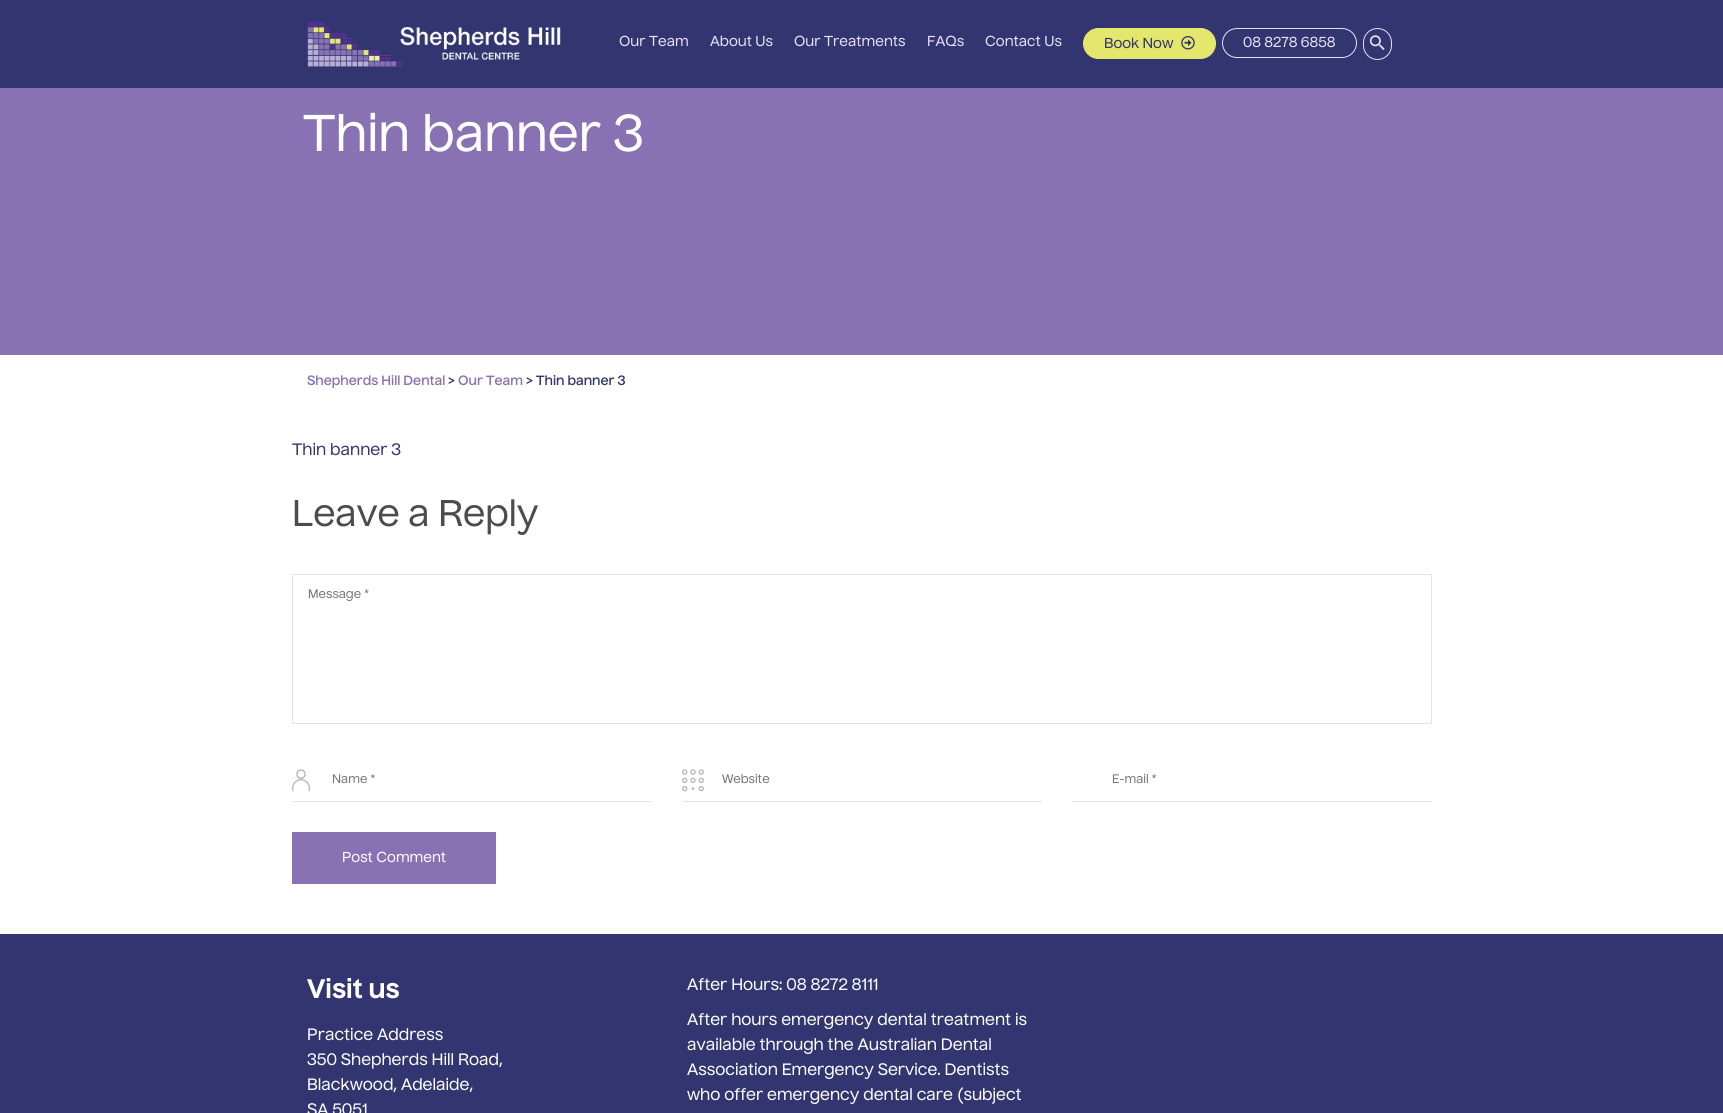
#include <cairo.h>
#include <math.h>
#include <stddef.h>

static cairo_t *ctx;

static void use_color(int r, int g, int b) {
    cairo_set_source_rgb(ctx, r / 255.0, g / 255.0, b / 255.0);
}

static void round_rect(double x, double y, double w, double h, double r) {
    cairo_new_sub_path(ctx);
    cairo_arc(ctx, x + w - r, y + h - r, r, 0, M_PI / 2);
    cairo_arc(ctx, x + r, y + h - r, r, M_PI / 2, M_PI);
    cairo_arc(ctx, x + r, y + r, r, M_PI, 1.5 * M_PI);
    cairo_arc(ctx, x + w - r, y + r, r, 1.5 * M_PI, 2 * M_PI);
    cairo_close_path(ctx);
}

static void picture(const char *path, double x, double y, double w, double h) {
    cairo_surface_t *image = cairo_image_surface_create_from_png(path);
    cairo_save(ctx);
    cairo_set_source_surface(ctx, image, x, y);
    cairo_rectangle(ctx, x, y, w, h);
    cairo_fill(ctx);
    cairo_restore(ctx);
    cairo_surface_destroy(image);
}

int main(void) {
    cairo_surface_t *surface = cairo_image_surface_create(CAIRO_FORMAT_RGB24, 1723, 1113);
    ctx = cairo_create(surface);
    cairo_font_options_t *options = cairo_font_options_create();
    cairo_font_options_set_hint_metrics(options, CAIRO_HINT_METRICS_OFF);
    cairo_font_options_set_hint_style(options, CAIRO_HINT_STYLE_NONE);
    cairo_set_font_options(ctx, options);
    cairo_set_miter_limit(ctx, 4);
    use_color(255, 255, 255);
    cairo_paint(ctx);
    use_color(50, 53, 112);
    cairo_rectangle(ctx, 0, 0, 1723, 88);
    cairo_fill(ctx);
    picture("img1.png", 307, 21, 254, 46);
    cairo_select_font_face(ctx, "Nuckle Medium", CAIRO_FONT_SLANT_NORMAL, CAIRO_FONT_WEIGHT_NORMAL);
    cairo_set_font_size(ctx, 14);
    use_color(232, 224, 246);
    cairo_move_to(ctx, 619, 46);
    cairo_show_text(ctx, "Our Team");
    cairo_move_to(ctx, 710, 46);
    cairo_show_text(ctx, "About Us");
    cairo_move_to(ctx, 794, 46);
    cairo_show_text(ctx, "Our Treatments");
    cairo_move_to(ctx, 927, 46);
    cairo_show_text(ctx, "FAQs");
    cairo_move_to(ctx, 985, 46);
    cairo_show_text(ctx, "Contact Us");
    use_color(229, 231, 108);
    round_rect(1083.5, 28.5, 132, 30, 15);
    cairo_fill_preserve(ctx);
    cairo_set_line_width(ctx, 1);
    cairo_stroke(ctx);
    use_color(50, 53, 112);
    cairo_move_to(ctx, 1104, 48);
    cairo_show_text(ctx, "Book Now");
    picture("img2.png", 1181, 36, 14, 14);
    round_rect(1222.5, 28.5, 134, 29, 14.5);
    use_color(232, 224, 246);
    cairo_stroke(ctx);
    cairo_move_to(ctx, 1243, 47);
    cairo_show_text(ctx, "08 8278 6858");
    round_rect(1363.5, 28.5, 28, 31, 14);
    cairo_stroke(ctx);
    picture("img3.png", 1369, 35, 16, 15);
    use_color(136, 114, 180);
    cairo_rectangle(ctx, 0, 88, 1723, 267);
    cairo_fill(ctx);
    cairo_set_font_size(ctx, 50);
    use_color(255, 255, 255);
    cairo_move_to(ctx, 303, 151);
    cairo_show_text(ctx, "Thin banner 3");
    cairo_select_font_face(ctx, "Nuckle SemiBold", CAIRO_FONT_SLANT_NORMAL, CAIRO_FONT_WEIGHT_NORMAL);
    cairo_set_font_size(ctx, 13);
    use_color(136, 114, 180);
    cairo_move_to(ctx, 307, 385);
    cairo_show_text(ctx, "Shepherds Hill Dental");
    use_color(50, 53, 112);
    cairo_move_to(ctx, 448, 385);
    cairo_show_text(ctx, ">");
    use_color(136, 114, 180);
    cairo_move_to(ctx, 458, 385);
    cairo_show_text(ctx, "Our Team");
    use_color(50, 53, 112);
    cairo_move_to(ctx, 526, 385);
    cairo_show_text(ctx, "> Thin banner 3");
    cairo_select_font_face(ctx, "Nuckle Medium", CAIRO_FONT_SLANT_NORMAL, CAIRO_FONT_WEIGHT_NORMAL);
    cairo_set_font_size(ctx, 16);
    cairo_move_to(ctx, 292, 455);
    cairo_show_text(ctx, "Thin banner 3");
    cairo_set_font_size(ctx, 36);
    use_color(76, 76, 76);
    cairo_move_to(ctx, 292, 526);
    cairo_show_text(ctx, "Leave a Reply");
    cairo_rectangle(ctx, 292.5, 574.5, 1139, 149);
    use_color(228, 228, 228);
    cairo_stroke(ctx);
    cairo_set_font_size(ctx, 12);
    use_color(117, 117, 117);
    cairo_move_to(ctx, 308, 598);
    cairo_show_text(ctx, "Message *");
    picture("img4.png", 292, 769, 18, 23);
    use_color(228, 228, 228);
    cairo_rectangle(ctx, 292, 801, 360, 1);
    cairo_fill(ctx);
    use_color(117, 117, 117);
    cairo_move_to(ctx, 332, 783);
    cairo_show_text(ctx, "Name *");
    picture("img5.png", 682, 769, 22, 23);
    use_color(228, 228, 228);
    cairo_rectangle(ctx, 682, 801, 360, 1);
    cairo_fill(ctx);
    use_color(117, 117, 117);
    cairo_move_to(ctx, 722, 783);
    cairo_show_text(ctx, "Website");
    use_color(228, 228, 228);
    cairo_rectangle(ctx, 1072, 801, 360, 1);
    cairo_fill(ctx);
    use_color(117, 117, 117);
    cairo_move_to(ctx, 1112, 783);
    cairo_show_text(ctx, "E-mail *");
    use_color(136, 114, 180);
    cairo_rectangle(ctx, 292, 832, 204, 52);
    cairo_fill(ctx);
    cairo_set_font_size(ctx, 14);
    use_color(255, 255, 255);
    cairo_move_to(ctx, 342, 862);
    cairo_show_text(ctx, "Post Comment");
    use_color(50, 53, 112);
    cairo_rectangle(ctx, 0, 934, 1723, 179);
    cairo_fill(ctx);
    cairo_select_font_face(ctx, "Nuckle", CAIRO_FONT_SLANT_NORMAL, CAIRO_FONT_WEIGHT_BOLD);
    cairo_set_font_size(ctx, 26);
    use_color(255, 255, 255);
    cairo_move_to(ctx, 307, 998);
    cairo_show_text(ctx, "Visit us");
    cairo_select_font_face(ctx, "Nuckle Medium", CAIRO_FONT_SLANT_NORMAL, CAIRO_FONT_WEIGHT_NORMAL);
    cairo_set_font_size(ctx, 16);
    cairo_move_to(ctx, 307, 1040);
    cairo_show_text(ctx, "Practice Address");
    cairo_move_to(ctx, 307, 1065);
    cairo_show_text(ctx, "350 Shepherds Hill Road,");
    cairo_move_to(ctx, 307, 1090);
    cairo_show_text(ctx, "Blackwood, Adelaide,");
    cairo_move_to(ctx, 307, 1115);
    cairo_show_text(ctx, "SA 5051");
    cairo_move_to(ctx, 687, 990);
    cairo_show_text(ctx, "After Hours: 08 8272 8111");
    cairo_move_to(ctx, 687, 1025);
    cairo_show_text(ctx, "After hours emergency dental treatment is");
    cairo_move_to(ctx, 687, 1050);
    cairo_show_text(ctx, "available through the Australian Dental");
    cairo_move_to(ctx, 687, 1075);
    cairo_show_text(ctx, "Association Emergency Service. Dentists");
    cairo_move_to(ctx, 687, 1100);
    cairo_show_text(ctx, "who offer emergency dental care (subject");
    cairo_surface_write_to_png(surface, "result.png");
    cairo_font_options_destroy(options);
    cairo_destroy(ctx);
    cairo_surface_destroy(surface);
    return 0;
}
